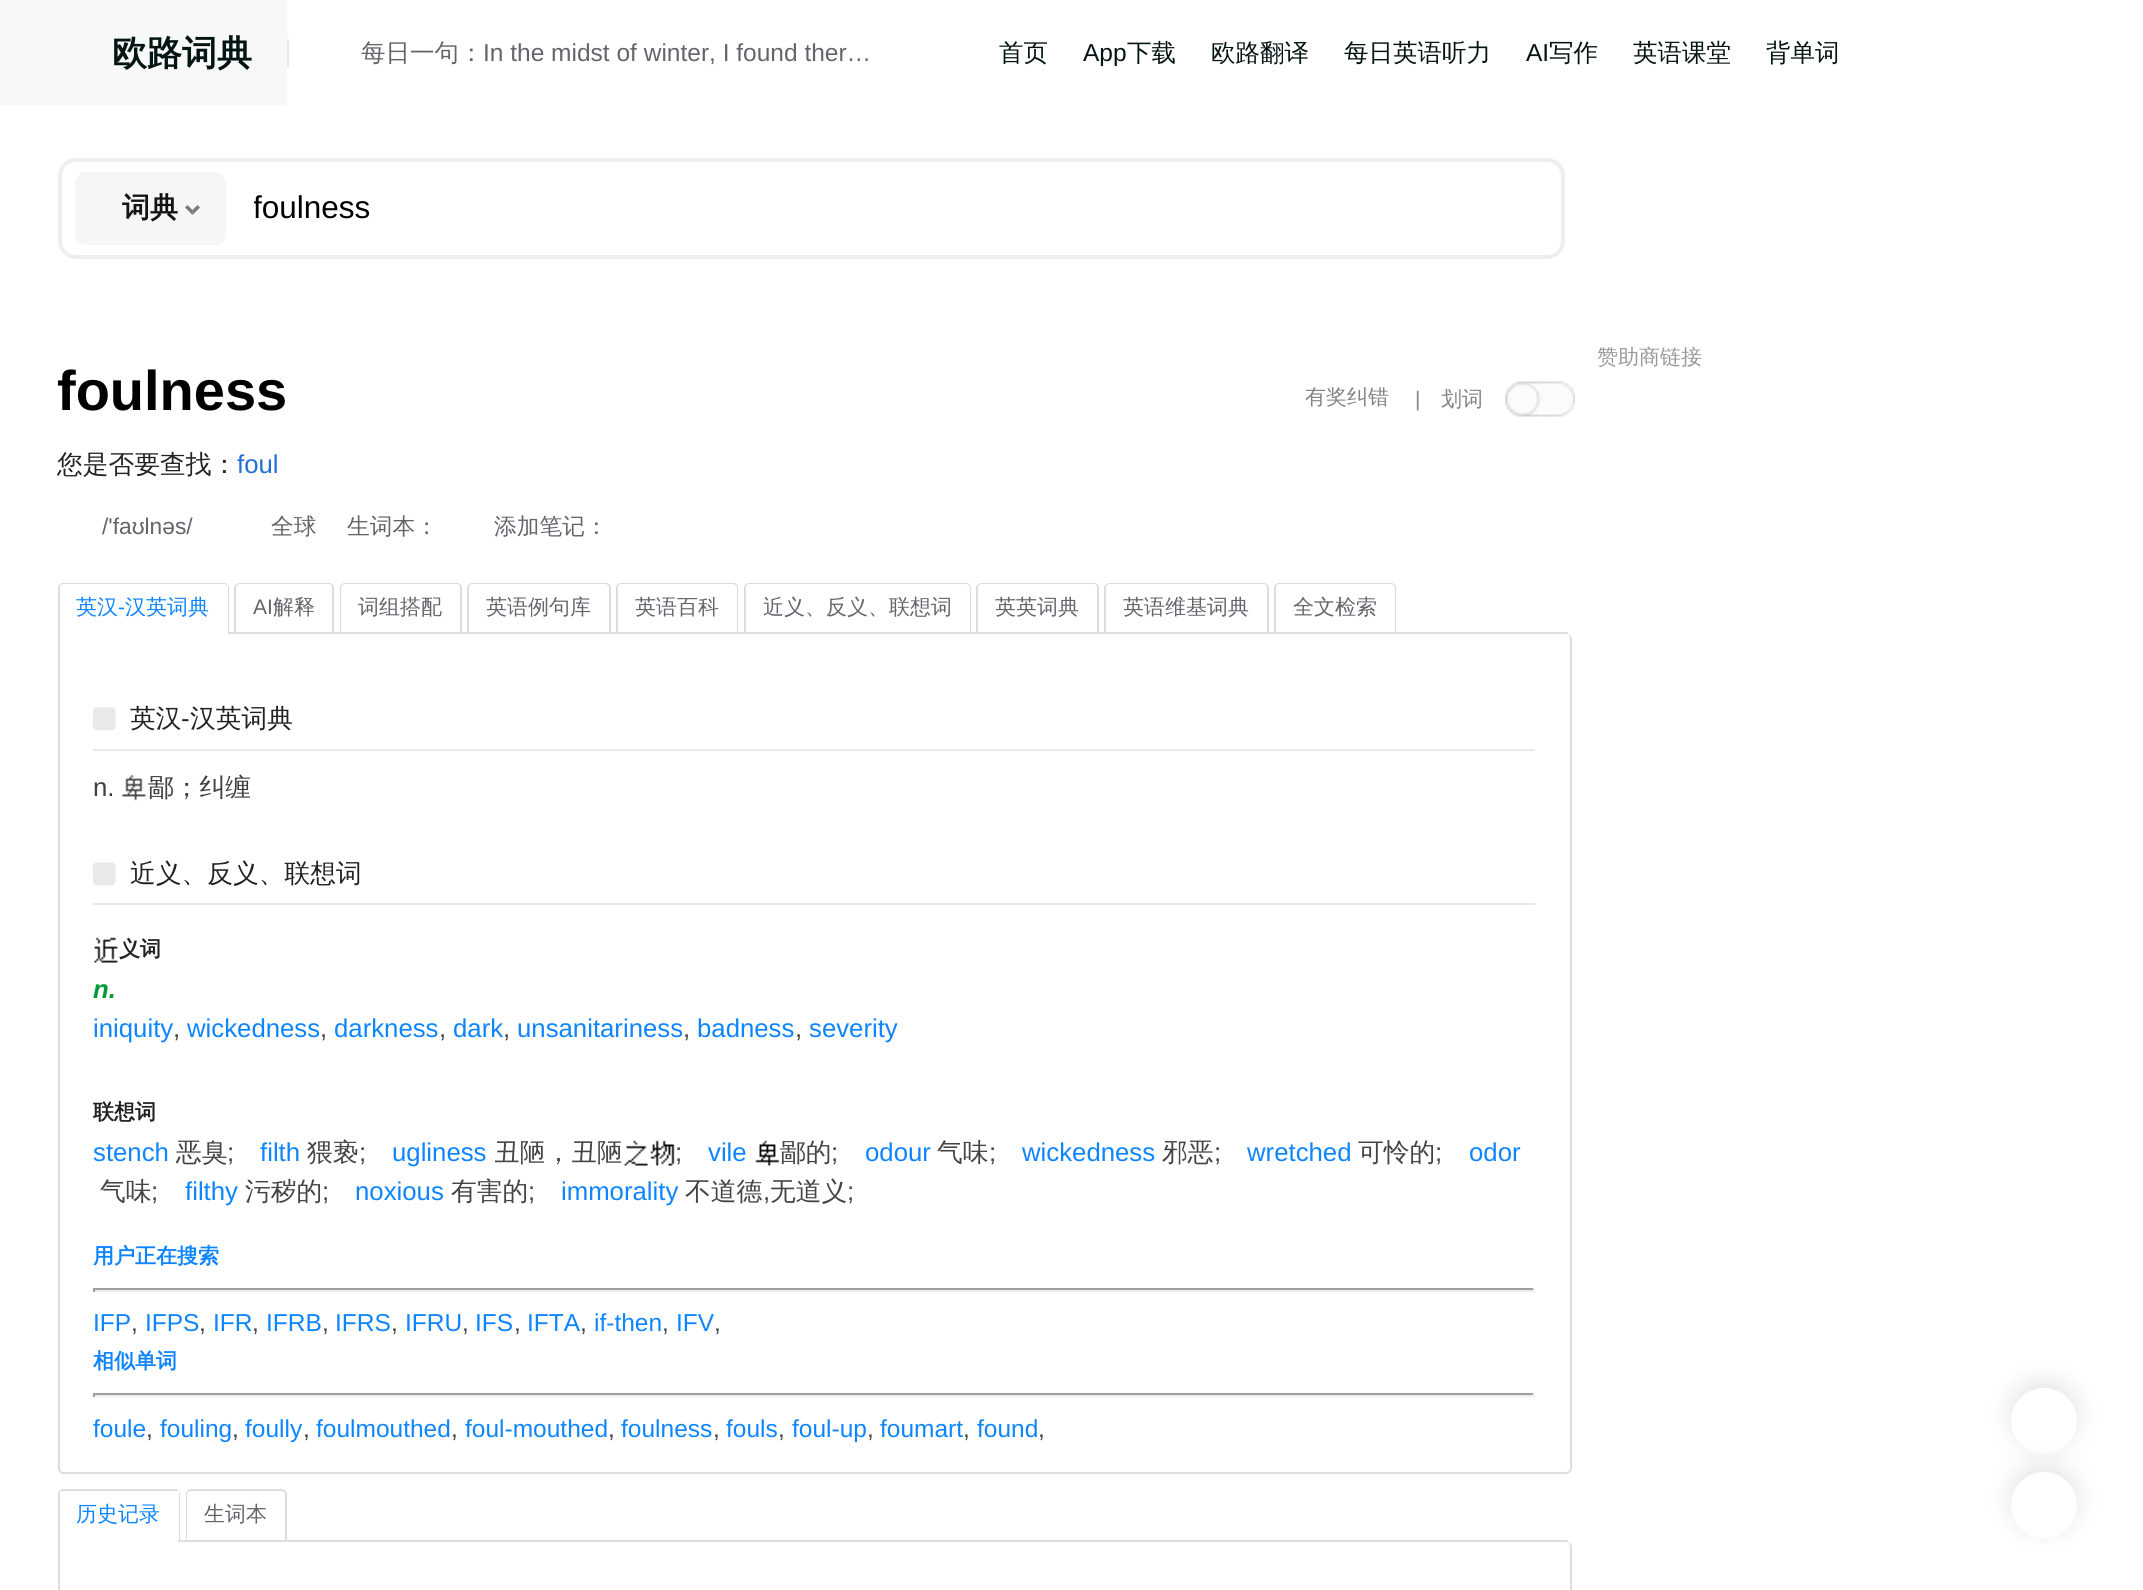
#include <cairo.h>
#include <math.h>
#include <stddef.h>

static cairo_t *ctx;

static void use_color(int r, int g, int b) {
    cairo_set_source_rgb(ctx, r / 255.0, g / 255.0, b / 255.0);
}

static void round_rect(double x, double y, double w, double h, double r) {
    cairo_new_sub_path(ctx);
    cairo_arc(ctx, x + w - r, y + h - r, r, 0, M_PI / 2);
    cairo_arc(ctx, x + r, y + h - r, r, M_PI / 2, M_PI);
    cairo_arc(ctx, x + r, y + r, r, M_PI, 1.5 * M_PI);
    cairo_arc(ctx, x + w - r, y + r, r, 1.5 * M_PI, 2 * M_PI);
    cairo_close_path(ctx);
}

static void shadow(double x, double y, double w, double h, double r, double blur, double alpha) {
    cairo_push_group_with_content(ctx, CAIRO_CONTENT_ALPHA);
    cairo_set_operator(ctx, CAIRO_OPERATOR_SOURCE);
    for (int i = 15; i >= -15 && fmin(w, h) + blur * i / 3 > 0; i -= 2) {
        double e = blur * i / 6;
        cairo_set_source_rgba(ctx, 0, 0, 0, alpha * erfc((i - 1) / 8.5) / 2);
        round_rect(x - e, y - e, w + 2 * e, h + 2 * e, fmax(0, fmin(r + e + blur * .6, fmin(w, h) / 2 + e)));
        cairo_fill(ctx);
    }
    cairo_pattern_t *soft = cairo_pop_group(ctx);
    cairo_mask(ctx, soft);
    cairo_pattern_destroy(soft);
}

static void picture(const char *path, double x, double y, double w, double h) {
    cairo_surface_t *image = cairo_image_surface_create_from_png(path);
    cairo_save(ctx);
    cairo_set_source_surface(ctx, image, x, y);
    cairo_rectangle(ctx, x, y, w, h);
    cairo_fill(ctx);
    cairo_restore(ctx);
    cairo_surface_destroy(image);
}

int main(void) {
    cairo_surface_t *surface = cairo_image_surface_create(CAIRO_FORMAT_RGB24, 2143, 1590);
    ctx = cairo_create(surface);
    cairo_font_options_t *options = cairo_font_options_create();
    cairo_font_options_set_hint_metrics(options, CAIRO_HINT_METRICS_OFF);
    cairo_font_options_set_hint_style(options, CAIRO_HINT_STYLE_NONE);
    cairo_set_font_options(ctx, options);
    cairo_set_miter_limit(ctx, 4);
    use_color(255, 255, 255);
    cairo_paint(ctx);
    use_color(248, 248, 248);
    cairo_rectangle(ctx, 0, 0, 287, 105);
    cairo_fill(ctx);
    cairo_select_font_face(ctx, "WenQuanYi Zen Hei", CAIRO_FONT_SLANT_NORMAL, CAIRO_FONT_WEIGHT_BOLD);
    cairo_set_font_size(ctx, 35);
    use_color(4, 20, 19);
    cairo_move_to(ctx, 112, 65);
    cairo_show_text(ctx, "欧路词典");
    use_color(232, 233, 235);
    cairo_rectangle(ctx, 287, 39, 2, 28);
    cairo_fill(ctx);
    cairo_select_font_face(ctx, "WenQuanYi Zen Hei Medium", CAIRO_FONT_SLANT_NORMAL, CAIRO_FONT_WEIGHT_NORMAL);
    cairo_set_font_size(ctx, 24.5);
    use_color(99, 101, 107);
    cairo_move_to(ctx, 361, 61);
    cairo_show_text(ctx, "每日一句：");
    cairo_select_font_face(ctx, "Liberation Sans", CAIRO_FONT_SLANT_NORMAL, CAIRO_FONT_WEIGHT_NORMAL);
    cairo_move_to(ctx, 483, 61);
    cairo_show_text(ctx, "In the midst of winter, I found ther…");
    cairo_select_font_face(ctx, "WenQuanYi Zen Hei Medium", CAIRO_FONT_SLANT_NORMAL, CAIRO_FONT_WEIGHT_NORMAL);
    use_color(4, 20, 19);
    cairo_move_to(ctx, 999, 61);
    cairo_show_text(ctx, "首页");
    cairo_select_font_face(ctx, "Liberation Sans", CAIRO_FONT_SLANT_NORMAL, CAIRO_FONT_WEIGHT_NORMAL);
    cairo_move_to(ctx, 1083, 61);
    cairo_show_text(ctx, "App");
    cairo_select_font_face(ctx, "WenQuanYi Zen Hei Medium", CAIRO_FONT_SLANT_NORMAL, CAIRO_FONT_WEIGHT_NORMAL);
    cairo_move_to(ctx, 1127, 61);
    cairo_show_text(ctx, "下载");
    cairo_move_to(ctx, 1211, 61);
    cairo_show_text(ctx, "欧路翻译");
    cairo_move_to(ctx, 1344, 61);
    cairo_show_text(ctx, "每日英语听力");
    cairo_select_font_face(ctx, "Liberation Sans", CAIRO_FONT_SLANT_NORMAL, CAIRO_FONT_WEIGHT_NORMAL);
    cairo_move_to(ctx, 1526, 61);
    cairo_show_text(ctx, "AI");
    cairo_select_font_face(ctx, "WenQuanYi Zen Hei Medium", CAIRO_FONT_SLANT_NORMAL, CAIRO_FONT_WEIGHT_NORMAL);
    cairo_move_to(ctx, 1549, 61);
    cairo_show_text(ctx, "写作");
    cairo_move_to(ctx, 1633, 61);
    cairo_show_text(ctx, "英语课堂");
    cairo_move_to(ctx, 1766, 61);
    cairo_show_text(ctx, "背单词");
    round_rect(60, 160, 1503, 97, 16);
    use_color(238, 238, 238);
    cairo_set_line_width(ctx, 4);
    cairo_stroke(ctx);
    use_color(245, 246, 247);
    round_rect(75, 172, 151, 73, 11);
    cairo_fill(ctx);
    cairo_select_font_face(ctx, "WenQuanYi Zen Hei", CAIRO_FONT_SLANT_NORMAL, CAIRO_FONT_WEIGHT_BOLD);
    cairo_set_font_size(ctx, 28);
    use_color(19, 20, 21);
    cairo_move_to(ctx, 122, 217);
    cairo_show_text(ctx, "词典");
    use_color(123, 123, 124);
    cairo_new_path(ctx);
    cairo_move_to(ctx, 200, 207.5);
    cairo_line_to(ctx, 192.5, 215);
    cairo_line_to(ctx, 192.5, 210);
    cairo_line_to(ctx, 197.5, 205);
    cairo_close_path(ctx);
    cairo_fill(ctx);
    cairo_set_source_rgba(ctx, 0, 0, 0, 0.5);
    cairo_new_path(ctx);
    cairo_move_to(ctx, 192.5, 215);
    cairo_line_to(ctx, 185, 207.5);
    cairo_line_to(ctx, 187.5, 205);
    cairo_line_to(ctx, 192.5, 210);
    cairo_close_path(ctx);
    cairo_fill(ctx);
    cairo_save(ctx);
    cairo_rectangle(ctx, 254, 191, 1514, 37);
    cairo_clip(ctx);
    cairo_select_font_face(ctx, "Liberation Sans", CAIRO_FONT_SLANT_NORMAL, CAIRO_FONT_WEIGHT_NORMAL);
    cairo_set_font_size(ctx, 31.5);
    use_color(0, 0, 0);
    cairo_move_to(ctx, 253, 218);
    cairo_show_text(ctx, "foulness");
    cairo_restore(ctx);
    cairo_select_font_face(ctx, "WenQuanYi Zen Hei Medium", CAIRO_FONT_SLANT_NORMAL, CAIRO_FONT_WEIGHT_NORMAL);
    cairo_set_font_size(ctx, 21);
    use_color(153, 153, 153);
    cairo_move_to(ctx, 1597, 364);
    cairo_show_text(ctx, "赞助商链接");
    use_color(0, 0, 0);
    shadow(2011, 1381, 66, 66, 33, 12, 0.1);
    use_color(255, 255, 255);
    cairo_arc(ctx, 2044, 1421, 33, 0, 2 * M_PI);
    cairo_fill(ctx);
    use_color(0, 0, 0);
    shadow(2011, 1465, 66, 66, 33, 12, 0.1);
    use_color(255, 255, 255);
    cairo_arc(ctx, 2044, 1505, 33, 0, 2 * M_PI);
    cairo_fill(ctx);
    cairo_select_font_face(ctx, "Liberation Sans", CAIRO_FONT_SLANT_NORMAL, CAIRO_FONT_WEIGHT_BOLD);
    cairo_set_font_size(ctx, 56);
    use_color(0, 0, 0);
    cairo_move_to(ctx, 57, 410);
    cairo_show_text(ctx, "foulness");
    cairo_select_font_face(ctx, "WenQuanYi Zen Hei Medium", CAIRO_FONT_SLANT_NORMAL, CAIRO_FONT_WEIGHT_NORMAL);
    cairo_set_font_size(ctx, 21);
    use_color(131, 131, 131);
    cairo_move_to(ctx, 1305, 404);
    cairo_show_text(ctx, "有奖纠错");
    cairo_select_font_face(ctx, "Liberation Sans", CAIRO_FONT_SLANT_NORMAL, CAIRO_FONT_WEIGHT_NORMAL);
    cairo_move_to(ctx, 1415, 406);
    cairo_show_text(ctx, "|");
    cairo_select_font_face(ctx, "WenQuanYi Zen Hei Medium", CAIRO_FONT_SLANT_NORMAL, CAIRO_FONT_WEIGHT_NORMAL);
    cairo_move_to(ctx, 1441, 406);
    cairo_show_text(ctx, "划词");
    picture("img1.png", 1505, 381, 70, 36);
    cairo_set_font_size(ctx, 25.75);
    use_color(34, 34, 34);
    cairo_move_to(ctx, 57, 473);
    cairo_show_text(ctx, "您是否要查找：");
    cairo_select_font_face(ctx, "Liberation Sans", CAIRO_FONT_SLANT_NORMAL, CAIRO_FONT_WEIGHT_NORMAL);
    use_color(35, 111, 212);
    cairo_move_to(ctx, 237, 473);
    cairo_show_text(ctx, "foul");
    cairo_set_font_size(ctx, 22.75);
    use_color(99, 101, 107);
    cairo_move_to(ctx, 102, 534);
    cairo_show_text(ctx, "/'faʊlnəs/");
    cairo_select_font_face(ctx, "WenQuanYi Zen Hei Medium", CAIRO_FONT_SLANT_NORMAL, CAIRO_FONT_WEIGHT_NORMAL);
    cairo_move_to(ctx, 271, 534);
    cairo_show_text(ctx, "全球");
    cairo_move_to(ctx, 347, 534);
    cairo_show_text(ctx, "生词本：");
    cairo_move_to(ctx, 494, 534);
    cairo_show_text(ctx, "添加笔记：");
    use_color(221, 221, 221);
    cairo_rectangle(ctx, 229, 632, 1339, 2);
    cairo_fill(ctx);
    cairo_set_fill_rule(ctx, CAIRO_FILL_RULE_EVEN_ODD);
    cairo_new_path(ctx);
    cairo_move_to(ctx, 63, 583);
    cairo_line_to(ctx, 224, 583);
    cairo_curve_to(ctx, 227, 583, 229, 585, 229, 588);
    cairo_line_to(ctx, 229, 634);
    cairo_line_to(ctx, 58, 634);
    cairo_line_to(ctx, 58, 588);
    cairo_curve_to(ctx, 58, 585, 60, 583, 63, 583);
    cairo_close_path(ctx);
    cairo_move_to(ctx, 63, 584);
    cairo_line_to(ctx, 224, 584);
    cairo_curve_to(ctx, 226, 584, 228, 586, 228, 588);
    cairo_line_to(ctx, 228, 634);
    cairo_line_to(ctx, 60, 634);
    cairo_line_to(ctx, 60, 588);
    cairo_curve_to(ctx, 60, 586, 61, 584, 63, 584);
    cairo_close_path(ctx);
    cairo_fill(ctx);
    use_color(255, 255, 255);
    cairo_rectangle(ctx, 60, 585, 168, 2);
    cairo_fill(ctx);
    cairo_set_font_size(ctx, 21);
    use_color(13, 133, 255);
    cairo_move_to(ctx, 76, 614);
    cairo_show_text(ctx, "英汉");
    cairo_select_font_face(ctx, "Liberation Sans", CAIRO_FONT_SLANT_NORMAL, CAIRO_FONT_WEIGHT_NORMAL);
    cairo_move_to(ctx, 118, 614);
    cairo_show_text(ctx, "-");
    cairo_select_font_face(ctx, "WenQuanYi Zen Hei Medium", CAIRO_FONT_SLANT_NORMAL, CAIRO_FONT_WEIGHT_NORMAL);
    cairo_move_to(ctx, 125, 614);
    cairo_show_text(ctx, "汉英词典");
    use_color(221, 221, 221);
    cairo_new_path(ctx);
    cairo_move_to(ctx, 240, 583);
    cairo_line_to(ctx, 329, 583);
    cairo_curve_to(ctx, 332, 583, 334, 585, 334, 588);
    cairo_line_to(ctx, 334, 632);
    cairo_line_to(ctx, 234, 632);
    cairo_line_to(ctx, 234, 588);
    cairo_curve_to(ctx, 234, 585, 237, 583, 240, 583);
    cairo_close_path(ctx);
    cairo_move_to(ctx, 240, 584);
    cairo_line_to(ctx, 329, 584);
    cairo_curve_to(ctx, 331, 584, 332, 586, 332, 588);
    cairo_line_to(ctx, 332, 632);
    cairo_line_to(ctx, 236, 632);
    cairo_line_to(ctx, 236, 588);
    cairo_curve_to(ctx, 236, 586, 238, 584, 240, 584);
    cairo_close_path(ctx);
    cairo_fill(ctx);
    cairo_select_font_face(ctx, "Liberation Sans", CAIRO_FONT_SLANT_NORMAL, CAIRO_FONT_WEIGHT_NORMAL);
    use_color(99, 101, 107);
    cairo_move_to(ctx, 253, 614);
    cairo_show_text(ctx, "AI");
    cairo_select_font_face(ctx, "WenQuanYi Zen Hei Medium", CAIRO_FONT_SLANT_NORMAL, CAIRO_FONT_WEIGHT_NORMAL);
    cairo_move_to(ctx, 273, 614);
    cairo_show_text(ctx, "解释");
    use_color(221, 221, 221);
    cairo_new_path(ctx);
    cairo_move_to(ctx, 345, 583);
    cairo_line_to(ctx, 457, 583);
    cairo_curve_to(ctx, 460, 583, 462, 585, 462, 588);
    cairo_line_to(ctx, 462, 632);
    cairo_line_to(ctx, 340, 632);
    cairo_line_to(ctx, 340, 588);
    cairo_curve_to(ctx, 340, 585, 342, 583, 345, 583);
    cairo_close_path(ctx);
    cairo_move_to(ctx, 345, 584);
    cairo_line_to(ctx, 457, 584);
    cairo_curve_to(ctx, 459, 584, 460, 586, 460, 588);
    cairo_line_to(ctx, 460, 632);
    cairo_line_to(ctx, 341, 632);
    cairo_line_to(ctx, 341, 588);
    cairo_curve_to(ctx, 341, 586, 343, 584, 345, 584);
    cairo_close_path(ctx);
    cairo_fill(ctx);
    use_color(99, 101, 107);
    cairo_move_to(ctx, 358, 614);
    cairo_show_text(ctx, "词组搭配");
    use_color(221, 221, 221);
    cairo_new_path(ctx);
    cairo_move_to(ctx, 472, 583);
    cairo_line_to(ctx, 606, 583);
    cairo_curve_to(ctx, 608, 583, 611, 585, 611, 588);
    cairo_line_to(ctx, 611, 632);
    cairo_line_to(ctx, 467, 632);
    cairo_line_to(ctx, 467, 588);
    cairo_curve_to(ctx, 467, 585, 470, 583, 472, 583);
    cairo_close_path(ctx);
    cairo_move_to(ctx, 472, 584);
    cairo_line_to(ctx, 606, 584);
    cairo_curve_to(ctx, 607, 584, 609, 586, 609, 588);
    cairo_line_to(ctx, 609, 632);
    cairo_line_to(ctx, 469, 632);
    cairo_line_to(ctx, 469, 588);
    cairo_curve_to(ctx, 469, 586, 471, 584, 472, 584);
    cairo_close_path(ctx);
    cairo_fill(ctx);
    use_color(99, 101, 107);
    cairo_move_to(ctx, 486, 614);
    cairo_show_text(ctx, "英语例句库");
    use_color(221, 221, 221);
    cairo_new_path(ctx);
    cairo_move_to(ctx, 621, 583);
    cairo_line_to(ctx, 733, 583);
    cairo_curve_to(ctx, 736, 583, 738, 585, 738, 588);
    cairo_line_to(ctx, 738, 632);
    cairo_line_to(ctx, 616, 632);
    cairo_line_to(ctx, 616, 588);
    cairo_curve_to(ctx, 616, 585, 618, 583, 621, 583);
    cairo_close_path(ctx);
    cairo_move_to(ctx, 621, 584);
    cairo_line_to(ctx, 733, 584);
    cairo_curve_to(ctx, 735, 584, 737, 586, 737, 588);
    cairo_line_to(ctx, 737, 632);
    cairo_line_to(ctx, 618, 632);
    cairo_line_to(ctx, 618, 588);
    cairo_curve_to(ctx, 618, 586, 619, 584, 621, 584);
    cairo_close_path(ctx);
    cairo_fill(ctx);
    use_color(99, 101, 107);
    cairo_move_to(ctx, 635, 614);
    cairo_show_text(ctx, "英语百科");
    use_color(221, 221, 221);
    cairo_new_path(ctx);
    cairo_move_to(ctx, 749, 583);
    cairo_line_to(ctx, 966, 583);
    cairo_curve_to(ctx, 969, 583, 971, 585, 971, 588);
    cairo_line_to(ctx, 971, 632);
    cairo_line_to(ctx, 744, 632);
    cairo_line_to(ctx, 744, 588);
    cairo_curve_to(ctx, 744, 585, 746, 583, 749, 583);
    cairo_close_path(ctx);
    cairo_move_to(ctx, 749, 584);
    cairo_line_to(ctx, 966, 584);
    cairo_curve_to(ctx, 968, 584, 970, 586, 970, 588);
    cairo_line_to(ctx, 970, 632);
    cairo_line_to(ctx, 746, 632);
    cairo_line_to(ctx, 746, 588);
    cairo_curve_to(ctx, 746, 586, 747, 584, 749, 584);
    cairo_close_path(ctx);
    cairo_fill(ctx);
    use_color(99, 101, 107);
    cairo_move_to(ctx, 763, 614);
    cairo_show_text(ctx, "近义、反义、联想词");
    use_color(221, 221, 221);
    cairo_new_path(ctx);
    cairo_move_to(ctx, 982, 583);
    cairo_line_to(ctx, 1094, 583);
    cairo_curve_to(ctx, 1097, 583, 1099, 585, 1099, 588);
    cairo_line_to(ctx, 1099, 632);
    cairo_line_to(ctx, 976, 632);
    cairo_line_to(ctx, 976, 588);
    cairo_curve_to(ctx, 976, 585, 979, 583, 982, 583);
    cairo_close_path(ctx);
    cairo_move_to(ctx, 982, 584);
    cairo_line_to(ctx, 1094, 584);
    cairo_curve_to(ctx, 1096, 584, 1097, 586, 1097, 588);
    cairo_line_to(ctx, 1097, 632);
    cairo_line_to(ctx, 978, 632);
    cairo_line_to(ctx, 978, 588);
    cairo_curve_to(ctx, 978, 586, 980, 584, 982, 584);
    cairo_close_path(ctx);
    cairo_fill(ctx);
    use_color(99, 101, 107);
    cairo_move_to(ctx, 995, 614);
    cairo_show_text(ctx, "英英词典");
    use_color(221, 221, 221);
    cairo_new_path(ctx);
    cairo_move_to(ctx, 1110, 583);
    cairo_line_to(ctx, 1264, 583);
    cairo_curve_to(ctx, 1266, 583, 1269, 585, 1269, 588);
    cairo_line_to(ctx, 1269, 632);
    cairo_line_to(ctx, 1104, 632);
    cairo_line_to(ctx, 1104, 588);
    cairo_curve_to(ctx, 1104, 585, 1107, 583, 1110, 583);
    cairo_close_path(ctx);
    cairo_move_to(ctx, 1110, 584);
    cairo_line_to(ctx, 1264, 584);
    cairo_curve_to(ctx, 1265, 584, 1267, 586, 1267, 588);
    cairo_line_to(ctx, 1267, 632);
    cairo_line_to(ctx, 1106, 632);
    cairo_line_to(ctx, 1106, 588);
    cairo_curve_to(ctx, 1106, 586, 1108, 584, 1110, 584);
    cairo_close_path(ctx);
    cairo_fill(ctx);
    use_color(99, 101, 107);
    cairo_move_to(ctx, 1123, 614);
    cairo_show_text(ctx, "英语维基词典");
    use_color(221, 221, 221);
    cairo_new_path(ctx);
    cairo_move_to(ctx, 1279, 583);
    cairo_line_to(ctx, 1391, 583);
    cairo_curve_to(ctx, 1394, 583, 1396, 585, 1396, 588);
    cairo_line_to(ctx, 1396, 632);
    cairo_line_to(ctx, 1274, 632);
    cairo_line_to(ctx, 1274, 588);
    cairo_curve_to(ctx, 1274, 585, 1276, 583, 1279, 583);
    cairo_close_path(ctx);
    cairo_move_to(ctx, 1279, 584);
    cairo_line_to(ctx, 1391, 584);
    cairo_curve_to(ctx, 1393, 584, 1395, 586, 1395, 588);
    cairo_line_to(ctx, 1395, 632);
    cairo_line_to(ctx, 1276, 632);
    cairo_line_to(ctx, 1276, 588);
    cairo_curve_to(ctx, 1276, 586, 1277, 584, 1279, 584);
    cairo_close_path(ctx);
    cairo_fill(ctx);
    use_color(99, 101, 107);
    cairo_move_to(ctx, 1293, 614);
    cairo_show_text(ctx, "全文检索");
    use_color(221, 221, 221);
    cairo_new_path(ctx);
    cairo_move_to(ctx, 58, 634);
    cairo_line_to(ctx, 1566, 634);
    cairo_curve_to(ctx, 1569, 634, 1572, 636, 1572, 639);
    cairo_line_to(ctx, 1572, 1468);
    cairo_curve_to(ctx, 1572, 1471, 1569, 1474, 1566, 1474);
    cairo_line_to(ctx, 63, 1474);
    cairo_curve_to(ctx, 60, 1474, 58, 1471, 58, 1468);
    cairo_close_path(ctx);
    cairo_move_to(ctx, 60, 634);
    cairo_line_to(ctx, 1566, 634);
    cairo_curve_to(ctx, 1568, 634, 1570, 636, 1570, 639);
    cairo_line_to(ctx, 1570, 1468);
    cairo_curve_to(ctx, 1570, 1470, 1568, 1472, 1566, 1472);
    cairo_line_to(ctx, 63, 1472);
    cairo_curve_to(ctx, 61, 1472, 60, 1470, 60, 1468);
    cairo_close_path(ctx);
    cairo_fill(ctx);
    use_color(232, 233, 235);
    cairo_rectangle(ctx, 93, 749, 1442, 2);
    cairo_fill(ctx);
    cairo_set_fill_rule(ctx, CAIRO_FILL_RULE_WINDING);
    cairo_new_path(ctx);
    cairo_move_to(ctx, 115.5, 711);
    cairo_line_to(ctx, 115.5, 726.5);
    cairo_curve_to(ctx, 115.5, 728.5, 114, 730, 112, 730);
    cairo_line_to(ctx, 96.5, 730);
    cairo_curve_to(ctx, 94.5, 730, 93, 728.5, 93, 726.5);
    cairo_line_to(ctx, 93, 711);
    cairo_curve_to(ctx, 93, 709, 94.5, 707.5, 96.5, 707.5);
    cairo_line_to(ctx, 112, 707.5);
    cairo_curve_to(ctx, 114, 707.5, 115.5, 709, 115.5, 711);
    cairo_close_path(ctx);
    cairo_fill(ctx);
    cairo_set_font_size(ctx, 25.75);
    use_color(34, 34, 34);
    cairo_move_to(ctx, 130, 727);
    cairo_show_text(ctx, "英汉");
    cairo_select_font_face(ctx, "Liberation Sans", CAIRO_FONT_SLANT_NORMAL, CAIRO_FONT_WEIGHT_NORMAL);
    cairo_move_to(ctx, 181, 727);
    cairo_show_text(ctx, "-");
    cairo_select_font_face(ctx, "WenQuanYi Zen Hei Medium", CAIRO_FONT_SLANT_NORMAL, CAIRO_FONT_WEIGHT_NORMAL);
    cairo_move_to(ctx, 190, 727);
    cairo_show_text(ctx, "汉英词典");
    cairo_select_font_face(ctx, "Liberation Sans", CAIRO_FONT_SLANT_NORMAL, CAIRO_FONT_WEIGHT_NORMAL);
    use_color(62, 62, 62);
    cairo_move_to(ctx, 93, 796);
    cairo_show_text(ctx, "n.");
    picture("img2.png", 122, 774, 24, 27);
    cairo_select_font_face(ctx, "WenQuanYi Zen Hei Medium", CAIRO_FONT_SLANT_NORMAL, CAIRO_FONT_WEIGHT_NORMAL);
    cairo_move_to(ctx, 148, 796);
    cairo_show_text(ctx, "鄙；纠缠");
    use_color(232, 233, 235);
    cairo_rectangle(ctx, 93, 903, 1442, 2);
    cairo_fill(ctx);
    cairo_new_path(ctx);
    cairo_move_to(ctx, 115.5, 866);
    cairo_line_to(ctx, 115.5, 882);
    cairo_curve_to(ctx, 115.5, 883.5, 114, 885.5, 112, 885.5);
    cairo_line_to(ctx, 96.5, 885.5);
    cairo_curve_to(ctx, 94.5, 885.5, 93, 883.5, 93, 882);
    cairo_line_to(ctx, 93, 866);
    cairo_curve_to(ctx, 93, 864, 94.5, 862.5, 96.5, 862.5);
    cairo_line_to(ctx, 112, 862.5);
    cairo_curve_to(ctx, 114, 862.5, 115.5, 864, 115.5, 866);
    cairo_close_path(ctx);
    cairo_fill(ctx);
    use_color(34, 34, 34);
    cairo_move_to(ctx, 130, 882);
    cairo_show_text(ctx, "近义、反义、联想词");
    picture("img3.png", 94, 937, 24, 26);
    cairo_select_font_face(ctx, "WenQuanYi Zen Hei", CAIRO_FONT_SLANT_NORMAL, CAIRO_FONT_WEIGHT_BOLD);
    cairo_set_font_size(ctx, 21);
    cairo_move_to(ctx, 119, 956);
    cairo_show_text(ctx, "义词");
    cairo_select_font_face(ctx, "Liberation Sans", CAIRO_FONT_SLANT_ITALIC, CAIRO_FONT_WEIGHT_BOLD);
    cairo_set_font_size(ctx, 25.75);
    use_color(0, 153, 51);
    cairo_move_to(ctx, 93, 998);
    cairo_show_text(ctx, "n.");
    cairo_select_font_face(ctx, "Liberation Sans", CAIRO_FONT_SLANT_NORMAL, CAIRO_FONT_WEIGHT_NORMAL);
    use_color(13, 133, 255);
    cairo_move_to(ctx, 93, 1037);
    cairo_show_text(ctx, "iniquity");
    use_color(68, 68, 68);
    cairo_move_to(ctx, 173, 1037);
    cairo_show_text(ctx, ",");
    use_color(13, 133, 255);
    cairo_move_to(ctx, 187, 1037);
    cairo_show_text(ctx, "wickedness");
    use_color(68, 68, 68);
    cairo_move_to(ctx, 320, 1037);
    cairo_show_text(ctx, ",");
    use_color(13, 133, 255);
    cairo_move_to(ctx, 334, 1037);
    cairo_show_text(ctx, "darkness");
    use_color(68, 68, 68);
    cairo_move_to(ctx, 439, 1037);
    cairo_show_text(ctx, ",");
    use_color(13, 133, 255);
    cairo_move_to(ctx, 453, 1037);
    cairo_show_text(ctx, "dark");
    use_color(68, 68, 68);
    cairo_move_to(ctx, 503, 1037);
    cairo_show_text(ctx, ",");
    use_color(13, 133, 255);
    cairo_move_to(ctx, 517, 1037);
    cairo_show_text(ctx, "unsanitariness");
    use_color(68, 68, 68);
    cairo_move_to(ctx, 683, 1037);
    cairo_show_text(ctx, ",");
    use_color(13, 133, 255);
    cairo_move_to(ctx, 697, 1037);
    cairo_show_text(ctx, "badness");
    use_color(68, 68, 68);
    cairo_move_to(ctx, 795, 1037);
    cairo_show_text(ctx, ",");
    use_color(13, 133, 255);
    cairo_move_to(ctx, 809, 1037);
    cairo_show_text(ctx, "severity");
    cairo_select_font_face(ctx, "WenQuanYi Zen Hei", CAIRO_FONT_SLANT_NORMAL, CAIRO_FONT_WEIGHT_BOLD);
    cairo_set_font_size(ctx, 21);
    use_color(34, 34, 34);
    cairo_move_to(ctx, 93, 1119);
    cairo_show_text(ctx, "联想词");
    cairo_select_font_face(ctx, "Liberation Sans", CAIRO_FONT_SLANT_NORMAL, CAIRO_FONT_WEIGHT_NORMAL);
    cairo_set_font_size(ctx, 25.75);
    use_color(13, 133, 255);
    cairo_move_to(ctx, 93, 1161);
    cairo_show_text(ctx, "stench");
    cairo_select_font_face(ctx, "WenQuanYi Zen Hei Medium", CAIRO_FONT_SLANT_NORMAL, CAIRO_FONT_WEIGHT_NORMAL);
    use_color(68, 68, 68);
    cairo_move_to(ctx, 176, 1161);
    cairo_show_text(ctx, "恶臭");
    cairo_select_font_face(ctx, "Liberation Sans", CAIRO_FONT_SLANT_NORMAL, CAIRO_FONT_WEIGHT_NORMAL);
    cairo_move_to(ctx, 227, 1161);
    cairo_show_text(ctx, ";");
    use_color(13, 133, 255);
    cairo_move_to(ctx, 260, 1161);
    cairo_show_text(ctx, "filth");
    cairo_select_font_face(ctx, "WenQuanYi Zen Hei Medium", CAIRO_FONT_SLANT_NORMAL, CAIRO_FONT_WEIGHT_NORMAL);
    use_color(68, 68, 68);
    cairo_move_to(ctx, 307, 1161);
    cairo_show_text(ctx, "猥亵");
    cairo_select_font_face(ctx, "Liberation Sans", CAIRO_FONT_SLANT_NORMAL, CAIRO_FONT_WEIGHT_NORMAL);
    cairo_move_to(ctx, 359, 1161);
    cairo_show_text(ctx, ";");
    use_color(13, 133, 255);
    cairo_move_to(ctx, 392, 1161);
    cairo_show_text(ctx, "ugliness");
    cairo_select_font_face(ctx, "WenQuanYi Zen Hei Medium", CAIRO_FONT_SLANT_NORMAL, CAIRO_FONT_WEIGHT_NORMAL);
    use_color(68, 68, 68);
    cairo_move_to(ctx, 494, 1161);
    cairo_show_text(ctx, "丑陋，丑陋");
    picture("img4.png", 624, 1140, 24, 26);
    picture("img5.png", 650, 1140, 25, 26);
    cairo_select_font_face(ctx, "Liberation Sans", CAIRO_FONT_SLANT_NORMAL, CAIRO_FONT_WEIGHT_NORMAL);
    cairo_move_to(ctx, 675, 1161);
    cairo_show_text(ctx, ";");
    use_color(13, 133, 255);
    cairo_move_to(ctx, 708, 1161);
    cairo_show_text(ctx, "vile");
    picture("img6.png", 755, 1140, 25, 26);
    cairo_select_font_face(ctx, "WenQuanYi Zen Hei Medium", CAIRO_FONT_SLANT_NORMAL, CAIRO_FONT_WEIGHT_NORMAL);
    use_color(68, 68, 68);
    cairo_move_to(ctx, 780, 1161);
    cairo_show_text(ctx, "鄙的");
    cairo_select_font_face(ctx, "Liberation Sans", CAIRO_FONT_SLANT_NORMAL, CAIRO_FONT_WEIGHT_NORMAL);
    cairo_move_to(ctx, 831, 1161);
    cairo_show_text(ctx, ";");
    use_color(13, 133, 255);
    cairo_move_to(ctx, 865, 1161);
    cairo_show_text(ctx, "odour");
    cairo_select_font_face(ctx, "WenQuanYi Zen Hei Medium", CAIRO_FONT_SLANT_NORMAL, CAIRO_FONT_WEIGHT_NORMAL);
    use_color(68, 68, 68);
    cairo_move_to(ctx, 937, 1161);
    cairo_show_text(ctx, "气味");
    cairo_select_font_face(ctx, "Liberation Sans", CAIRO_FONT_SLANT_NORMAL, CAIRO_FONT_WEIGHT_NORMAL);
    cairo_move_to(ctx, 989, 1161);
    cairo_show_text(ctx, ";");
    use_color(13, 133, 255);
    cairo_move_to(ctx, 1022, 1161);
    cairo_show_text(ctx, "wickedness");
    cairo_select_font_face(ctx, "WenQuanYi Zen Hei Medium", CAIRO_FONT_SLANT_NORMAL, CAIRO_FONT_WEIGHT_NORMAL);
    use_color(68, 68, 68);
    cairo_move_to(ctx, 1162, 1161);
    cairo_show_text(ctx, "邪恶");
    cairo_select_font_face(ctx, "Liberation Sans", CAIRO_FONT_SLANT_NORMAL, CAIRO_FONT_WEIGHT_NORMAL);
    cairo_move_to(ctx, 1214, 1161);
    cairo_show_text(ctx, ";");
    use_color(13, 133, 255);
    cairo_move_to(ctx, 1247, 1161);
    cairo_show_text(ctx, "wretched");
    cairo_select_font_face(ctx, "WenQuanYi Zen Hei Medium", CAIRO_FONT_SLANT_NORMAL, CAIRO_FONT_WEIGHT_NORMAL);
    use_color(68, 68, 68);
    cairo_move_to(ctx, 1358, 1161);
    cairo_show_text(ctx, "可怜的");
    cairo_select_font_face(ctx, "Liberation Sans", CAIRO_FONT_SLANT_NORMAL, CAIRO_FONT_WEIGHT_NORMAL);
    cairo_move_to(ctx, 1435, 1161);
    cairo_show_text(ctx, ";");
    use_color(13, 133, 255);
    cairo_move_to(ctx, 1469, 1161);
    cairo_show_text(ctx, "odor");
    cairo_select_font_face(ctx, "WenQuanYi Zen Hei Medium", CAIRO_FONT_SLANT_NORMAL, CAIRO_FONT_WEIGHT_NORMAL);
    use_color(68, 68, 68);
    cairo_move_to(ctx, 100, 1200);
    cairo_show_text(ctx, "气味");
    cairo_select_font_face(ctx, "Liberation Sans", CAIRO_FONT_SLANT_NORMAL, CAIRO_FONT_WEIGHT_NORMAL);
    cairo_move_to(ctx, 151, 1200);
    cairo_show_text(ctx, ";");
    use_color(13, 133, 255);
    cairo_move_to(ctx, 185, 1200);
    cairo_show_text(ctx, "filthy");
    cairo_select_font_face(ctx, "WenQuanYi Zen Hei Medium", CAIRO_FONT_SLANT_NORMAL, CAIRO_FONT_WEIGHT_NORMAL);
    use_color(68, 68, 68);
    cairo_move_to(ctx, 245, 1200);
    cairo_show_text(ctx, "污秽的");
    cairo_select_font_face(ctx, "Liberation Sans", CAIRO_FONT_SLANT_NORMAL, CAIRO_FONT_WEIGHT_NORMAL);
    cairo_move_to(ctx, 322, 1200);
    cairo_show_text(ctx, ";");
    use_color(13, 133, 255);
    cairo_move_to(ctx, 355, 1200);
    cairo_show_text(ctx, "noxious");
    cairo_select_font_face(ctx, "WenQuanYi Zen Hei Medium", CAIRO_FONT_SLANT_NORMAL, CAIRO_FONT_WEIGHT_NORMAL);
    use_color(68, 68, 68);
    cairo_move_to(ctx, 451, 1200);
    cairo_show_text(ctx, "有害的");
    cairo_select_font_face(ctx, "Liberation Sans", CAIRO_FONT_SLANT_NORMAL, CAIRO_FONT_WEIGHT_NORMAL);
    cairo_move_to(ctx, 528, 1200);
    cairo_show_text(ctx, ";");
    use_color(13, 133, 255);
    cairo_move_to(ctx, 561, 1200);
    cairo_show_text(ctx, "immorality");
    cairo_select_font_face(ctx, "WenQuanYi Zen Hei Medium", CAIRO_FONT_SLANT_NORMAL, CAIRO_FONT_WEIGHT_NORMAL);
    use_color(68, 68, 68);
    cairo_move_to(ctx, 685, 1200);
    cairo_show_text(ctx, "不道德");
    cairo_select_font_face(ctx, "Liberation Sans", CAIRO_FONT_SLANT_NORMAL, CAIRO_FONT_WEIGHT_NORMAL);
    cairo_move_to(ctx, 763, 1200);
    cairo_show_text(ctx, ",");
    cairo_select_font_face(ctx, "WenQuanYi Zen Hei Medium", CAIRO_FONT_SLANT_NORMAL, CAIRO_FONT_WEIGHT_NORMAL);
    cairo_move_to(ctx, 770, 1200);
    cairo_show_text(ctx, "无道义");
    cairo_select_font_face(ctx, "Liberation Sans", CAIRO_FONT_SLANT_NORMAL, CAIRO_FONT_WEIGHT_NORMAL);
    cairo_move_to(ctx, 847, 1200);
    cairo_show_text(ctx, ";");
    cairo_select_font_face(ctx, "WenQuanYi Zen Hei", CAIRO_FONT_SLANT_NORMAL, CAIRO_FONT_WEIGHT_BOLD);
    cairo_set_font_size(ctx, 21);
    use_color(13, 133, 255);
    cairo_move_to(ctx, 93, 1263);
    cairo_show_text(ctx, "用户正在搜索");
    use_color(159, 159, 159);
    cairo_rectangle(ctx, 93, 1288, 1442, 2);
    cairo_fill(ctx);
    use_color(238, 238, 238);
    cairo_rectangle(ctx, 1533, 1288, 2, 4);
    cairo_fill(ctx);
    cairo_rectangle(ctx, 93, 1290, 1442, 2);
    cairo_fill(ctx);
    use_color(159, 159, 159);
    cairo_rectangle(ctx, 93, 1288, 2, 4);
    cairo_fill(ctx);
    cairo_select_font_face(ctx, "Liberation Sans", CAIRO_FONT_SLANT_NORMAL, CAIRO_FONT_WEIGHT_NORMAL);
    cairo_set_font_size(ctx, 24.5);
    use_color(13, 133, 255);
    cairo_move_to(ctx, 93, 1331);
    cairo_show_text(ctx, "IFP");
    use_color(68, 68, 68);
    cairo_move_to(ctx, 131, 1331);
    cairo_show_text(ctx, ",");
    use_color(13, 133, 255);
    cairo_move_to(ctx, 145, 1331);
    cairo_show_text(ctx, "IFPS");
    use_color(68, 68, 68);
    cairo_move_to(ctx, 199, 1331);
    cairo_show_text(ctx, ",");
    use_color(13, 133, 255);
    cairo_move_to(ctx, 213, 1331);
    cairo_show_text(ctx, "IFR");
    use_color(68, 68, 68);
    cairo_move_to(ctx, 252, 1331);
    cairo_show_text(ctx, ",");
    use_color(13, 133, 255);
    cairo_move_to(ctx, 266, 1331);
    cairo_show_text(ctx, "IFRB");
    use_color(68, 68, 68);
    cairo_move_to(ctx, 322, 1331);
    cairo_show_text(ctx, ",");
    use_color(13, 133, 255);
    cairo_move_to(ctx, 335, 1331);
    cairo_show_text(ctx, "IFRS");
    use_color(68, 68, 68);
    cairo_move_to(ctx, 391, 1331);
    cairo_show_text(ctx, ",");
    use_color(13, 133, 255);
    cairo_move_to(ctx, 405, 1331);
    cairo_show_text(ctx, "IFRU");
    use_color(68, 68, 68);
    cairo_move_to(ctx, 462, 1331);
    cairo_show_text(ctx, ",");
    use_color(13, 133, 255);
    cairo_move_to(ctx, 475, 1331);
    cairo_show_text(ctx, "IFS");
    use_color(68, 68, 68);
    cairo_move_to(ctx, 514, 1331);
    cairo_show_text(ctx, ",");
    use_color(13, 133, 255);
    cairo_move_to(ctx, 527, 1331);
    cairo_show_text(ctx, "IFTA");
    use_color(68, 68, 68);
    cairo_move_to(ctx, 580, 1331);
    cairo_show_text(ctx, ",");
    use_color(13, 133, 255);
    cairo_move_to(ctx, 594, 1331);
    cairo_show_text(ctx, "if-then");
    use_color(68, 68, 68);
    cairo_move_to(ctx, 662, 1331);
    cairo_show_text(ctx, ",");
    use_color(13, 133, 255);
    cairo_move_to(ctx, 676, 1331);
    cairo_show_text(ctx, "IFV");
    use_color(68, 68, 68);
    cairo_move_to(ctx, 714, 1331);
    cairo_show_text(ctx, ",");
    cairo_select_font_face(ctx, "WenQuanYi Zen Hei", CAIRO_FONT_SLANT_NORMAL, CAIRO_FONT_WEIGHT_BOLD);
    cairo_set_font_size(ctx, 21);
    use_color(13, 133, 255);
    cairo_move_to(ctx, 93, 1368);
    cairo_show_text(ctx, "相似单词");
    use_color(159, 159, 159);
    cairo_rectangle(ctx, 93, 1393, 1442, 2);
    cairo_fill(ctx);
    use_color(238, 238, 238);
    cairo_rectangle(ctx, 1533, 1393, 2, 4);
    cairo_fill(ctx);
    cairo_rectangle(ctx, 93, 1395, 1442, 2);
    cairo_fill(ctx);
    use_color(159, 159, 159);
    cairo_rectangle(ctx, 93, 1393, 2, 4);
    cairo_fill(ctx);
    cairo_select_font_face(ctx, "Liberation Sans", CAIRO_FONT_SLANT_NORMAL, CAIRO_FONT_WEIGHT_NORMAL);
    cairo_set_font_size(ctx, 24.5);
    use_color(13, 133, 255);
    cairo_move_to(ctx, 93, 1437);
    cairo_show_text(ctx, "foule");
    use_color(68, 68, 68);
    cairo_move_to(ctx, 146, 1437);
    cairo_show_text(ctx, ",");
    use_color(13, 133, 255);
    cairo_move_to(ctx, 160, 1437);
    cairo_show_text(ctx, "fouling");
    use_color(68, 68, 68);
    cairo_move_to(ctx, 232, 1437);
    cairo_show_text(ctx, ",");
    use_color(13, 133, 255);
    cairo_move_to(ctx, 245, 1437);
    cairo_show_text(ctx, "foully");
    use_color(68, 68, 68);
    cairo_move_to(ctx, 303, 1437);
    cairo_show_text(ctx, ",");
    use_color(13, 133, 255);
    cairo_move_to(ctx, 316, 1437);
    cairo_show_text(ctx, "foulmouthed");
    use_color(68, 68, 68);
    cairo_move_to(ctx, 451, 1437);
    cairo_show_text(ctx, ",");
    use_color(13, 133, 255);
    cairo_move_to(ctx, 465, 1437);
    cairo_show_text(ctx, "foul-mouthed");
    use_color(68, 68, 68);
    cairo_move_to(ctx, 608, 1437);
    cairo_show_text(ctx, ",");
    use_color(13, 133, 255);
    cairo_move_to(ctx, 621, 1437);
    cairo_show_text(ctx, "foulness");
    use_color(68, 68, 68);
    cairo_move_to(ctx, 713, 1437);
    cairo_show_text(ctx, ",");
    use_color(13, 133, 255);
    cairo_move_to(ctx, 726, 1437);
    cairo_show_text(ctx, "fouls");
    use_color(68, 68, 68);
    cairo_move_to(ctx, 778, 1437);
    cairo_show_text(ctx, ",");
    use_color(13, 133, 255);
    cairo_move_to(ctx, 792, 1437);
    cairo_show_text(ctx, "foul-up");
    use_color(68, 68, 68);
    cairo_move_to(ctx, 867, 1437);
    cairo_show_text(ctx, ",");
    use_color(13, 133, 255);
    cairo_move_to(ctx, 880, 1437);
    cairo_show_text(ctx, "foumart");
    use_color(68, 68, 68);
    cairo_move_to(ctx, 963, 1437);
    cairo_show_text(ctx, ",");
    use_color(13, 133, 255);
    cairo_move_to(ctx, 977, 1437);
    cairo_show_text(ctx, "found");
    use_color(68, 68, 68);
    cairo_move_to(ctx, 1038, 1437);
    cairo_show_text(ctx, ",");
    use_color(221, 221, 221);
    cairo_rectangle(ctx, 180, 1540, 1388, 2);
    cairo_fill(ctx);
    cairo_set_fill_rule(ctx, CAIRO_FILL_RULE_EVEN_ODD);
    cairo_new_path(ctx);
    cairo_move_to(ctx, 63, 1489);
    cairo_line_to(ctx, 175, 1489);
    cairo_curve_to(ctx, 178, 1489, 180, 1492, 180, 1494);
    cairo_line_to(ctx, 180, 1542);
    cairo_line_to(ctx, 58, 1542);
    cairo_line_to(ctx, 58, 1494);
    cairo_curve_to(ctx, 58, 1492, 60, 1489, 63, 1489);
    cairo_close_path(ctx);
    cairo_move_to(ctx, 63, 1491);
    cairo_line_to(ctx, 175, 1491);
    cairo_curve_to(ctx, 177, 1491, 178, 1493, 178, 1494);
    cairo_line_to(ctx, 178, 1542);
    cairo_line_to(ctx, 60, 1542);
    cairo_line_to(ctx, 60, 1494);
    cairo_curve_to(ctx, 60, 1493, 61, 1491, 63, 1491);
    cairo_close_path(ctx);
    cairo_fill(ctx);
    use_color(255, 255, 255);
    cairo_rectangle(ctx, 60, 1491, 119, 49);
    cairo_fill(ctx);
    cairo_select_font_face(ctx, "WenQuanYi Zen Hei Medium", CAIRO_FONT_SLANT_NORMAL, CAIRO_FONT_WEIGHT_NORMAL);
    cairo_set_font_size(ctx, 21);
    use_color(13, 133, 255);
    cairo_move_to(ctx, 76, 1521);
    cairo_show_text(ctx, "历史记录");
    use_color(221, 221, 221);
    cairo_new_path(ctx);
    cairo_move_to(ctx, 191, 1489);
    cairo_line_to(ctx, 282, 1489);
    cairo_curve_to(ctx, 285, 1489, 287, 1492, 287, 1494);
    cairo_line_to(ctx, 287, 1540);
    cairo_line_to(ctx, 186, 1540);
    cairo_line_to(ctx, 186, 1494);
    cairo_curve_to(ctx, 186, 1492, 188, 1489, 191, 1489);
    cairo_close_path(ctx);
    cairo_move_to(ctx, 191, 1491);
    cairo_line_to(ctx, 282, 1491);
    cairo_curve_to(ctx, 284, 1491, 285, 1493, 285, 1494);
    cairo_line_to(ctx, 285, 1540);
    cairo_line_to(ctx, 187, 1540);
    cairo_line_to(ctx, 187, 1494);
    cairo_curve_to(ctx, 187, 1493, 189, 1491, 191, 1491);
    cairo_close_path(ctx);
    cairo_fill(ctx);
    use_color(99, 101, 107);
    cairo_move_to(ctx, 204, 1521);
    cairo_show_text(ctx, "生词本");
    use_color(221, 221, 221);
    cairo_new_path(ctx);
    cairo_move_to(ctx, 58, 1542);
    cairo_line_to(ctx, 1566, 1542);
    cairo_curve_to(ctx, 1569, 1542, 1572, 1544, 1572, 1547);
    cairo_line_to(ctx, 1572, 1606);
    cairo_curve_to(ctx, 1572, 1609, 1569, 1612, 1566, 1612);
    cairo_line_to(ctx, 63, 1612);
    cairo_curve_to(ctx, 60, 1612, 58, 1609, 58, 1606);
    cairo_close_path(ctx);
    cairo_move_to(ctx, 60, 1542);
    cairo_line_to(ctx, 1566, 1542);
    cairo_curve_to(ctx, 1568, 1542, 1570, 1544, 1570, 1547);
    cairo_line_to(ctx, 1570, 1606);
    cairo_curve_to(ctx, 1570, 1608, 1568, 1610, 1566, 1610);
    cairo_line_to(ctx, 63, 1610);
    cairo_curve_to(ctx, 61, 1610, 60, 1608, 60, 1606);
    cairo_close_path(ctx);
    cairo_fill(ctx);
    cairo_surface_write_to_png(surface, "result.png");
    cairo_font_options_destroy(options);
    cairo_destroy(ctx);
    cairo_surface_destroy(surface);
    return 0;
}
